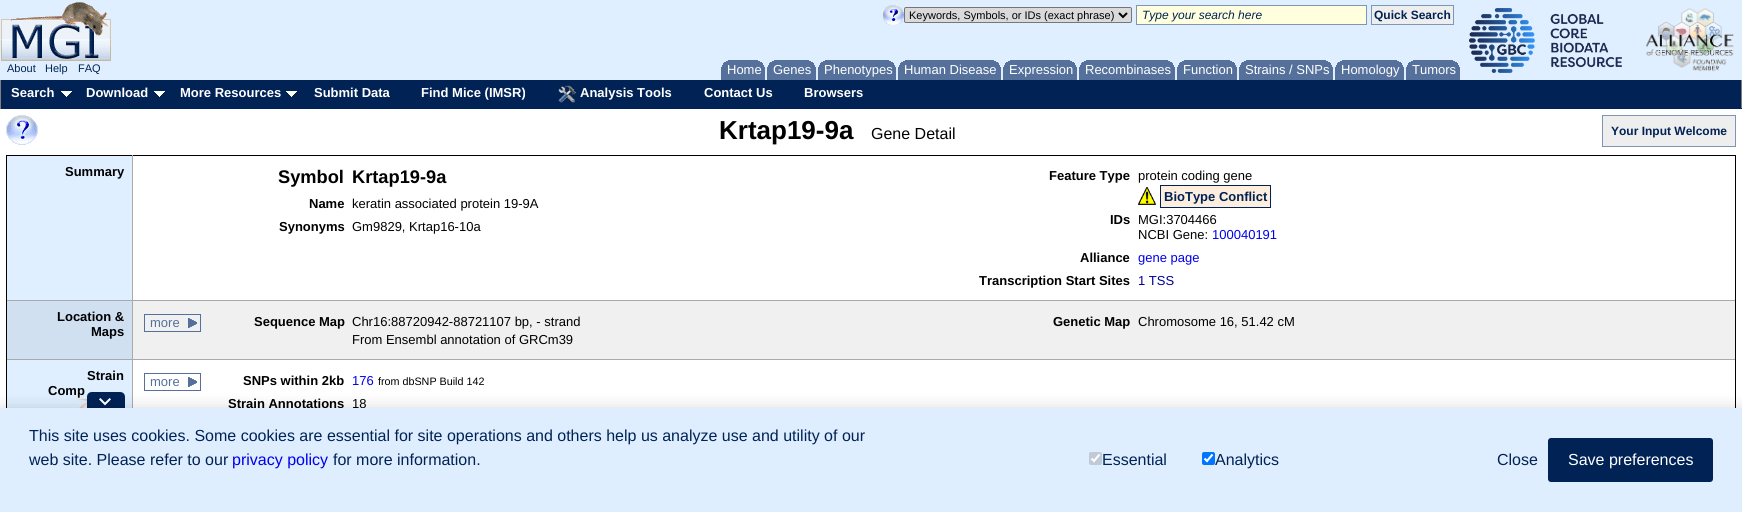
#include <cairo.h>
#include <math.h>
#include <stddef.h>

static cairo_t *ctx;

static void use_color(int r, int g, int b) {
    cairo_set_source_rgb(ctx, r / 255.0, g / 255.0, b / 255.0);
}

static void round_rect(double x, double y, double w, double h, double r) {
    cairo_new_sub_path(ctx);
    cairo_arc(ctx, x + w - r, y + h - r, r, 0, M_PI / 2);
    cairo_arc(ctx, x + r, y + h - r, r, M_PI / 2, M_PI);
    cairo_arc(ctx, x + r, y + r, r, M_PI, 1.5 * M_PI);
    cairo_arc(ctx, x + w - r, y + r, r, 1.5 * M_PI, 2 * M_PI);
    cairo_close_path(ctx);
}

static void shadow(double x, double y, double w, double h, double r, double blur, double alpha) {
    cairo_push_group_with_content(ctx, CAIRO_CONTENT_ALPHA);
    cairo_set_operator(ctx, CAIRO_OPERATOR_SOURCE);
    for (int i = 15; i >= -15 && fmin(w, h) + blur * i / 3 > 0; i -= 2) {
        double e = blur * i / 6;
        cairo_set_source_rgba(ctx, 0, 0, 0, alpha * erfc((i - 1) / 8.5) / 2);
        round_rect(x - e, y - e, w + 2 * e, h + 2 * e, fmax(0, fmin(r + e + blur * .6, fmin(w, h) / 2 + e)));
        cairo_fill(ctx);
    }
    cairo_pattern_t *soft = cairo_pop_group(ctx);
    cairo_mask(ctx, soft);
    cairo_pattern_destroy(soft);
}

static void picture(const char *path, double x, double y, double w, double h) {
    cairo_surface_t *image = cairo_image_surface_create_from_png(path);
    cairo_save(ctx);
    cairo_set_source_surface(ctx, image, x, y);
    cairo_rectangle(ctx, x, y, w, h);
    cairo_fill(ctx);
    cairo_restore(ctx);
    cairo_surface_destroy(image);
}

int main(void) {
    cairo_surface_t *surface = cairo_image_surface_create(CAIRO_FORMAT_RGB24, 1742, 512);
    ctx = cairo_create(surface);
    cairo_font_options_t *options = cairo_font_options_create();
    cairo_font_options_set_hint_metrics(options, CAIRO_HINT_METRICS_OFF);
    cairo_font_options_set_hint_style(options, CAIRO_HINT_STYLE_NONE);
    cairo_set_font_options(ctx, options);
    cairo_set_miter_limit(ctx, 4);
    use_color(255, 255, 255);
    cairo_paint(ctx);
    use_color(223, 239, 255);
    cairo_rectangle(ctx, 0, 0, 1742, 80);
    cairo_fill(ctx);
    picture("img1.png", 883, 5, 21, 20);
    use_color(218, 218, 218);
    round_rect(904.5, 7.5, 227, 15, 1.5);
    cairo_fill_preserve(ctx);
    use_color(118, 118, 118);
    cairo_set_line_width(ctx, 1);
    cairo_stroke(ctx);
    cairo_new_path(ctx);
    cairo_move_to(ctx, 1119, 13);
    cairo_line_to(ctx, 1123, 17);
    cairo_line_to(ctx, 1127, 13);
    use_color(0, 0, 0);
    cairo_set_line_width(ctx, 2);
    cairo_stroke(ctx);
    cairo_select_font_face(ctx, "Liberation Sans", CAIRO_FONT_SLANT_NORMAL, CAIRO_FONT_WEIGHT_NORMAL);
    cairo_set_font_size(ctx, 11);
    use_color(0, 0, 1);
    cairo_move_to(ctx, 909, 19);
    cairo_show_text(ctx, "Keywords, Symbols, or IDs (exact phrase)");
    use_color(255, 255, 221);
    cairo_rectangle(ctx, 1136.5, 5.5, 230, 19);
    cairo_fill_preserve(ctx);
    use_color(125, 149, 185);
    cairo_set_line_width(ctx, 1);
    cairo_stroke(ctx);
    cairo_select_font_face(ctx, "Liberation Sans", CAIRO_FONT_SLANT_ITALIC, CAIRO_FONT_WEIGHT_NORMAL);
    cairo_set_font_size(ctx, 12);
    use_color(0, 34, 85);
    cairo_move_to(ctx, 1142, 19);
    cairo_show_text(ctx, "Type your search here");
    use_color(238, 238, 238);
    cairo_rectangle(ctx, 1371.5, 5.5, 82, 19);
    cairo_fill_preserve(ctx);
    use_color(125, 149, 185);
    cairo_stroke(ctx);
    cairo_select_font_face(ctx, "Liberation Sans", CAIRO_FONT_SLANT_NORMAL, CAIRO_FONT_WEIGHT_BOLD);
    use_color(0, 34, 85);
    cairo_move_to(ctx, 1374, 19);
    cairo_show_text(ctx, "Quick Search");
    picture("img2.png", 1469, 8, 153, 65);
    picture("img3.png", 1645, 8, 89, 64);
    picture("img4.png", 1, 2, 110, 59);
    cairo_select_font_face(ctx, "Liberation Sans", CAIRO_FONT_SLANT_NORMAL, CAIRO_FONT_WEIGHT_NORMAL);
    cairo_set_font_size(ctx, 11);
    cairo_move_to(ctx, 7, 72);
    cairo_show_text(ctx, "About");
    cairo_move_to(ctx, 45, 72);
    cairo_show_text(ctx, "Help");
    cairo_move_to(ctx, 78, 72);
    cairo_show_text(ctx, "FAQ");
    use_color(84, 112, 155);
    cairo_rectangle(ctx, 721, 60, 44, 20);
    cairo_fill(ctx);
    picture("img5.png", 721, 60, 7, 7);
    picture("img6.png", 758, 60, 7, 7);
    cairo_set_font_size(ctx, 13);
    use_color(255, 255, 255);
    cairo_move_to(ctx, 727, 74);
    cairo_show_text(ctx, "Home");
    use_color(84, 112, 155);
    cairo_rectangle(ctx, 767, 60, 49, 20);
    cairo_fill(ctx);
    picture("img5.png", 767, 60, 7, 7);
    picture("img6.png", 809, 60, 7, 7);
    use_color(255, 255, 255);
    cairo_move_to(ctx, 773, 74);
    cairo_show_text(ctx, "Genes");
    use_color(84, 112, 155);
    cairo_rectangle(ctx, 818, 60, 78, 20);
    cairo_fill(ctx);
    picture("img5.png", 818, 60, 7, 7);
    picture("img6.png", 889, 60, 7, 7);
    use_color(255, 255, 255);
    cairo_move_to(ctx, 824, 74);
    cairo_show_text(ctx, "Phenotypes");
    use_color(84, 112, 155);
    cairo_rectangle(ctx, 898, 60, 103, 20);
    cairo_fill(ctx);
    picture("img5.png", 898, 60, 7, 7);
    picture("img6.png", 994, 60, 7, 7);
    use_color(255, 255, 255);
    cairo_move_to(ctx, 904, 74);
    cairo_show_text(ctx, "Human Disease");
    use_color(84, 112, 155);
    cairo_rectangle(ctx, 1003, 60, 74, 20);
    cairo_fill(ctx);
    picture("img5.png", 1003, 60, 7, 7);
    picture("img6.png", 1070, 60, 7, 7);
    use_color(255, 255, 255);
    cairo_move_to(ctx, 1009, 74);
    cairo_show_text(ctx, "Expression");
    use_color(84, 112, 155);
    cairo_rectangle(ctx, 1079, 60, 96, 20);
    cairo_fill(ctx);
    picture("img5.png", 1079, 60, 7, 7);
    picture("img6.png", 1168, 60, 7, 7);
    use_color(255, 255, 255);
    cairo_move_to(ctx, 1085, 74);
    cairo_show_text(ctx, "Recombinases");
    use_color(84, 112, 155);
    cairo_rectangle(ctx, 1177, 60, 60, 20);
    cairo_fill(ctx);
    picture("img5.png", 1177, 60, 7, 7);
    picture("img6.png", 1230, 60, 7, 7);
    use_color(255, 255, 255);
    cairo_move_to(ctx, 1183, 74);
    cairo_show_text(ctx, "Function");
    use_color(84, 112, 155);
    cairo_rectangle(ctx, 1239, 60, 94, 20);
    cairo_fill(ctx);
    picture("img5.png", 1239, 60, 7, 7);
    picture("img6.png", 1326, 60, 7, 7);
    use_color(255, 255, 255);
    cairo_move_to(ctx, 1245, 74);
    cairo_show_text(ctx, "Strains / SNPs");
    use_color(84, 112, 155);
    cairo_rectangle(ctx, 1335, 60, 69, 20);
    cairo_fill(ctx);
    picture("img5.png", 1335, 60, 7, 7);
    picture("img6.png", 1397, 60, 7, 7);
    use_color(255, 255, 255);
    cairo_move_to(ctx, 1341, 74);
    cairo_show_text(ctx, "Homology");
    use_color(84, 112, 155);
    cairo_rectangle(ctx, 1406, 60, 54, 20);
    cairo_fill(ctx);
    picture("img5.png", 1406, 60, 7, 7);
    picture("img6.png", 1453, 60, 7, 7);
    use_color(255, 255, 255);
    cairo_move_to(ctx, 1412, 74);
    cairo_show_text(ctx, "Tumors");
    use_color(0, 34, 85);
    cairo_rectangle(ctx, 1, 80, 1740, 28);
    cairo_fill(ctx);
    use_color(128, 128, 128);
    cairo_rectangle(ctx, 1741, 80, 1, 29);
    cairo_fill(ctx);
    use_color(0, 34, 85);
    cairo_rectangle(ctx, 0, 108, 1742, 1);
    cairo_fill(ctx);
    use_color(128, 128, 128);
    cairo_rectangle(ctx, 0, 80, 1, 29);
    cairo_fill(ctx);
    picture("img7.png", 61, 91, 11, 6);
    cairo_select_font_face(ctx, "Liberation Sans", CAIRO_FONT_SLANT_NORMAL, CAIRO_FONT_WEIGHT_BOLD);
    use_color(255, 255, 255);
    cairo_move_to(ctx, 11, 97);
    cairo_show_text(ctx, "Search");
    picture("img7.png", 154, 91, 11, 6);
    cairo_move_to(ctx, 86, 97);
    cairo_show_text(ctx, "Download");
    picture("img7.png", 286, 91, 11, 6);
    cairo_move_to(ctx, 180, 97);
    cairo_show_text(ctx, "More Resources");
    cairo_move_to(ctx, 314, 97);
    cairo_show_text(ctx, "Submit Data");
    cairo_move_to(ctx, 421, 97);
    cairo_show_text(ctx, "Find Mice (IMSR)");
    picture("img8.png", 558, 85, 18, 18);
    cairo_move_to(ctx, 580, 97);
    cairo_show_text(ctx, "Analysis Tools");
    cairo_move_to(ctx, 704, 97);
    cairo_show_text(ctx, "Contact Us");
    cairo_move_to(ctx, 804, 97);
    cairo_show_text(ctx, "Browsers");
    picture("img9.png", 6, 115, 32, 30);
    cairo_set_font_size(ctx, 26);
    use_color(0, 0, 1);
    cairo_move_to(ctx, 719, 139);
    cairo_show_text(ctx, "Krtap19-9a");
    cairo_select_font_face(ctx, "Liberation Sans", CAIRO_FONT_SLANT_NORMAL, CAIRO_FONT_WEIGHT_NORMAL);
    cairo_set_font_size(ctx, 16);
    cairo_move_to(ctx, 871, 139);
    cairo_show_text(ctx, "Gene Detail");
    use_color(238, 238, 238);
    cairo_rectangle(ctx, 1602.5, 115.5, 133, 31);
    cairo_fill_preserve(ctx);
    use_color(125, 149, 185);
    cairo_stroke(ctx);
    cairo_select_font_face(ctx, "Liberation Sans", CAIRO_FONT_SLANT_NORMAL, CAIRO_FONT_WEIGHT_BOLD);
    cairo_set_font_size(ctx, 12);
    use_color(0, 34, 85);
    cairo_move_to(ctx, 1611, 135);
    cairo_show_text(ctx, "Your Input Welcome");
    use_color(223, 239, 255);
    cairo_rectangle(ctx, 7, 156, 125, 144);
    cairo_fill(ctx);
    use_color(0, 0, 0);
    cairo_rectangle(ctx, 6, 155, 1730, 1);
    cairo_fill(ctx);
    use_color(170, 170, 170);
    cairo_rectangle(ctx, 132, 155, 1, 145);
    cairo_fill(ctx);
    use_color(0, 0, 0);
    cairo_rectangle(ctx, 6, 155, 1, 145);
    cairo_fill(ctx);
    cairo_set_font_size(ctx, 13);
    use_color(0, 0, 1);
    cairo_move_to(ctx, 65, 176);
    cairo_show_text(ctx, "Summary");
    use_color(0, 0, 0);
    cairo_rectangle(ctx, 1735, 155, 1, 145);
    cairo_fill(ctx);
    cairo_set_font_size(ctx, 18.25);
    use_color(0, 0, 1);
    cairo_move_to(ctx, 278, 183);
    cairo_show_text(ctx, "Symbol");
    cairo_move_to(ctx, 352, 183);
    cairo_show_text(ctx, "Krtap19-9a");
    cairo_set_font_size(ctx, 13);
    cairo_move_to(ctx, 309, 208);
    cairo_show_text(ctx, "Name");
    cairo_select_font_face(ctx, "Liberation Sans", CAIRO_FONT_SLANT_NORMAL, CAIRO_FONT_WEIGHT_NORMAL);
    cairo_move_to(ctx, 352, 208);
    cairo_show_text(ctx, "keratin associated protein 19-9A");
    cairo_select_font_face(ctx, "Liberation Sans", CAIRO_FONT_SLANT_NORMAL, CAIRO_FONT_WEIGHT_BOLD);
    cairo_move_to(ctx, 279, 231);
    cairo_show_text(ctx, "Synonyms");
    cairo_select_font_face(ctx, "Liberation Sans", CAIRO_FONT_SLANT_NORMAL, CAIRO_FONT_WEIGHT_NORMAL);
    cairo_move_to(ctx, 352, 231);
    cairo_show_text(ctx, "Gm9829, Krtap16-10a");
    cairo_select_font_face(ctx, "Liberation Sans", CAIRO_FONT_SLANT_NORMAL, CAIRO_FONT_WEIGHT_BOLD);
    cairo_move_to(ctx, 1049, 180);
    cairo_show_text(ctx, "Feature Type");
    cairo_select_font_face(ctx, "Liberation Sans", CAIRO_FONT_SLANT_NORMAL, CAIRO_FONT_WEIGHT_NORMAL);
    cairo_move_to(ctx, 1138, 180);
    cairo_show_text(ctx, "protein coding gene");
    picture("img10.png", 1138, 187, 18, 18);
    use_color(254, 238, 221);
    cairo_rectangle(ctx, 1160.5, 185.5, 110, 22);
    cairo_fill_preserve(ctx);
    use_color(0, 34, 85);
    cairo_stroke(ctx);
    cairo_select_font_face(ctx, "Liberation Sans", CAIRO_FONT_SLANT_NORMAL, CAIRO_FONT_WEIGHT_BOLD);
    cairo_move_to(ctx, 1164, 201);
    cairo_show_text(ctx, "BioType Conflict");
    use_color(0, 0, 1);
    cairo_move_to(ctx, 1110, 224);
    cairo_show_text(ctx, "IDs");
    cairo_select_font_face(ctx, "Liberation Sans", CAIRO_FONT_SLANT_NORMAL, CAIRO_FONT_WEIGHT_NORMAL);
    cairo_move_to(ctx, 1138, 224);
    cairo_show_text(ctx, "MGI:3704466");
    cairo_move_to(ctx, 1138, 239);
    cairo_show_text(ctx, "NCBI Gene:");
    use_color(0, 0, 238);
    cairo_move_to(ctx, 1212, 239);
    cairo_show_text(ctx, "100040191");
    cairo_select_font_face(ctx, "Liberation Sans", CAIRO_FONT_SLANT_NORMAL, CAIRO_FONT_WEIGHT_BOLD);
    use_color(0, 0, 1);
    cairo_move_to(ctx, 1080, 262);
    cairo_show_text(ctx, "Alliance");
    cairo_select_font_face(ctx, "Liberation Sans", CAIRO_FONT_SLANT_NORMAL, CAIRO_FONT_WEIGHT_NORMAL);
    use_color(0, 0, 238);
    cairo_move_to(ctx, 1138, 262);
    cairo_show_text(ctx, "gene page");
    cairo_select_font_face(ctx, "Liberation Sans", CAIRO_FONT_SLANT_NORMAL, CAIRO_FONT_WEIGHT_BOLD);
    use_color(0, 0, 1);
    cairo_move_to(ctx, 979, 285);
    cairo_show_text(ctx, "Transcription Start Sites");
    cairo_select_font_face(ctx, "Liberation Sans", CAIRO_FONT_SLANT_NORMAL, CAIRO_FONT_WEIGHT_NORMAL);
    use_color(0, 0, 153);
    cairo_move_to(ctx, 1138, 285);
    cairo_show_text(ctx, "1 TSS");
    use_color(208, 224, 240);
    cairo_rectangle(ctx, 7, 301, 125, 58);
    cairo_fill(ctx);
    use_color(170, 170, 170);
    cairo_rectangle(ctx, 6, 300, 1730, 1);
    cairo_fill(ctx);
    cairo_rectangle(ctx, 132, 300, 1, 59);
    cairo_fill(ctx);
    use_color(0, 0, 0);
    cairo_rectangle(ctx, 6, 300, 1, 59);
    cairo_fill(ctx);
    cairo_select_font_face(ctx, "Liberation Sans", CAIRO_FONT_SLANT_NORMAL, CAIRO_FONT_WEIGHT_BOLD);
    use_color(0, 0, 1);
    cairo_move_to(ctx, 57, 321);
    cairo_show_text(ctx, "Location &");
    cairo_move_to(ctx, 91, 336);
    cairo_show_text(ctx, "Maps");
    use_color(240, 240, 240);
    cairo_rectangle(ctx, 133, 301, 1602, 58);
    cairo_fill(ctx);
    use_color(0, 0, 0);
    cairo_rectangle(ctx, 1735, 300, 1, 59);
    cairo_fill(ctx);
    picture("img11.png", 188, 318, 9, 10);
    cairo_rectangle(ctx, 144.5, 314.5, 56, 17);
    use_color(84, 112, 155);
    cairo_stroke(ctx);
    cairo_select_font_face(ctx, "Liberation Sans", CAIRO_FONT_SLANT_NORMAL, CAIRO_FONT_WEIGHT_NORMAL);
    cairo_move_to(ctx, 150, 327);
    cairo_show_text(ctx, "more");
    cairo_select_font_face(ctx, "Liberation Sans", CAIRO_FONT_SLANT_NORMAL, CAIRO_FONT_WEIGHT_BOLD);
    use_color(0, 0, 1);
    cairo_move_to(ctx, 254, 326);
    cairo_show_text(ctx, "Sequence Map");
    cairo_select_font_face(ctx, "Liberation Sans", CAIRO_FONT_SLANT_NORMAL, CAIRO_FONT_WEIGHT_NORMAL);
    cairo_move_to(ctx, 352, 326);
    cairo_show_text(ctx, "Chr16:88720942-88721107 bp, - strand");
    cairo_move_to(ctx, 352, 344);
    cairo_show_text(ctx, "From Ensembl annotation of GRCm39");
    cairo_select_font_face(ctx, "Liberation Sans", CAIRO_FONT_SLANT_NORMAL, CAIRO_FONT_WEIGHT_BOLD);
    cairo_move_to(ctx, 1053, 326);
    cairo_show_text(ctx, "Genetic Map");
    cairo_select_font_face(ctx, "Liberation Sans", CAIRO_FONT_SLANT_NORMAL, CAIRO_FONT_WEIGHT_NORMAL);
    cairo_move_to(ctx, 1138, 326);
    cairo_show_text(ctx, "Chromosome 16, 51.42 cM");
    use_color(223, 239, 255);
    cairo_rectangle(ctx, 7, 360, 125, 48);
    cairo_fill(ctx);
    use_color(170, 170, 170);
    cairo_rectangle(ctx, 6, 359, 1730, 1);
    cairo_fill(ctx);
    cairo_rectangle(ctx, 132, 359, 1, 49);
    cairo_fill(ctx);
    use_color(0, 0, 0);
    cairo_rectangle(ctx, 6, 359, 1, 49);
    cairo_fill(ctx);
    cairo_select_font_face(ctx, "Liberation Sans", CAIRO_FONT_SLANT_NORMAL, CAIRO_FONT_WEIGHT_BOLD);
    use_color(0, 0, 1);
    cairo_move_to(ctx, 87, 380);
    cairo_show_text(ctx, "Strain");
    cairo_move_to(ctx, 48, 395);
    cairo_show_text(ctx, "Comp");
    picture("img12.png", 76, 398, 11, 10);
    use_color(0, 0, 0);
    cairo_rectangle(ctx, 1735, 359, 1, 49);
    cairo_fill(ctx);
    picture("img13.png", 188, 377, 9, 10);
    cairo_rectangle(ctx, 144.5, 373.5, 56, 17);
    use_color(84, 112, 155);
    cairo_stroke(ctx);
    cairo_select_font_face(ctx, "Liberation Sans", CAIRO_FONT_SLANT_NORMAL, CAIRO_FONT_WEIGHT_NORMAL);
    cairo_move_to(ctx, 150, 386);
    cairo_show_text(ctx, "more");
    cairo_select_font_face(ctx, "Liberation Sans", CAIRO_FONT_SLANT_NORMAL, CAIRO_FONT_WEIGHT_BOLD);
    use_color(0, 0, 1);
    cairo_move_to(ctx, 243, 385);
    cairo_show_text(ctx, "SNPs within 2kb");
    cairo_select_font_face(ctx, "Liberation Sans", CAIRO_FONT_SLANT_NORMAL, CAIRO_FONT_WEIGHT_NORMAL);
    use_color(0, 0, 238);
    cairo_move_to(ctx, 352, 385);
    cairo_show_text(ctx, "176");
    cairo_set_font_size(ctx, 10.75);
    use_color(0, 0, 1);
    cairo_move_to(ctx, 378, 385);
    cairo_show_text(ctx, "from dbSNP Build 142");
    cairo_select_font_face(ctx, "Liberation Sans", CAIRO_FONT_SLANT_NORMAL, CAIRO_FONT_WEIGHT_BOLD);
    cairo_set_font_size(ctx, 13);
    cairo_move_to(ctx, 228, 408);
    cairo_show_text(ctx, "Strain Annotations");
    cairo_select_font_face(ctx, "Liberation Sans", CAIRO_FONT_SLANT_NORMAL, CAIRO_FONT_WEIGHT_NORMAL);
    cairo_move_to(ctx, 352, 408);
    cairo_show_text(ctx, "18");
    use_color(0, 34, 85);
    cairo_new_path(ctx);
    cairo_move_to(ctx, 92, 392);
    cairo_line_to(ctx, 120, 392);
    cairo_curve_to(ctx, 123, 392, 125, 394, 125, 397);
    cairo_line_to(ctx, 125, 408);
    cairo_line_to(ctx, 87, 408);
    cairo_line_to(ctx, 87, 397);
    cairo_curve_to(ctx, 87, 394, 89, 392, 92, 392);
    cairo_close_path(ctx);
    cairo_fill(ctx);
    use_color(0, 0, 0);
    shadow(0, 408, 1742, 104, 0, 8, 0.15);
    picture("img14.png", 99, 398, 12, 8);
    use_color(222, 238, 255);
    cairo_rectangle(ctx, 0, 408, 1742, 104);
    cairo_fill(ctx);
    cairo_set_font_size(ctx, 16);
    use_color(0, 34, 85);
    cairo_move_to(ctx, 29, 441);
    cairo_show_text(ctx, "This site uses cookies. Some cookies are essential for site operations and others help us analyze use and utility of our");
    cairo_move_to(ctx, 29, 465);
    cairo_show_text(ctx, "web site. Please refer to our");
    use_color(0, 0, 238);
    cairo_move_to(ctx, 232, 465);
    cairo_show_text(ctx, "privacy policy");
    use_color(0, 34, 85);
    cairo_move_to(ctx, 333, 465);
    cairo_show_text(ctx, "for more information.");
    use_color(191, 202, 214);
    round_rect(1089, 452, 13, 13, 2);
    cairo_fill(ctx);
    cairo_new_path(ctx);
    cairo_move_to(ctx, 1091.5, 458.5);
    cairo_line_to(ctx, 1094, 461);
    cairo_line_to(ctx, 1099.5, 454.5);
    use_color(255, 255, 255);
    cairo_set_line_width(ctx, 2.1);
    cairo_stroke(ctx);
    use_color(0, 34, 85);
    cairo_move_to(ctx, 1102, 465);
    cairo_show_text(ctx, "Essential");
    use_color(0, 117, 255);
    round_rect(1202, 452, 13, 13, 2);
    cairo_fill(ctx);
    cairo_new_path(ctx);
    cairo_move_to(ctx, 1204.5, 458.5);
    cairo_line_to(ctx, 1207, 461);
    cairo_line_to(ctx, 1212.5, 454.5);
    use_color(255, 255, 255);
    cairo_stroke(ctx);
    use_color(0, 34, 85);
    cairo_move_to(ctx, 1215, 465);
    cairo_show_text(ctx, "Analytics");
    cairo_move_to(ctx, 1497, 465);
    cairo_show_text(ctx, "Close");
    round_rect(1548, 438, 165, 44, 3);
    cairo_fill(ctx);
    use_color(255, 255, 255);
    cairo_move_to(ctx, 1568, 465);
    cairo_show_text(ctx, "Save preferences");
    cairo_surface_write_to_png(surface, "result.png");
    cairo_font_options_destroy(options);
    cairo_destroy(ctx);
    cairo_surface_destroy(surface);
    return 0;
}
